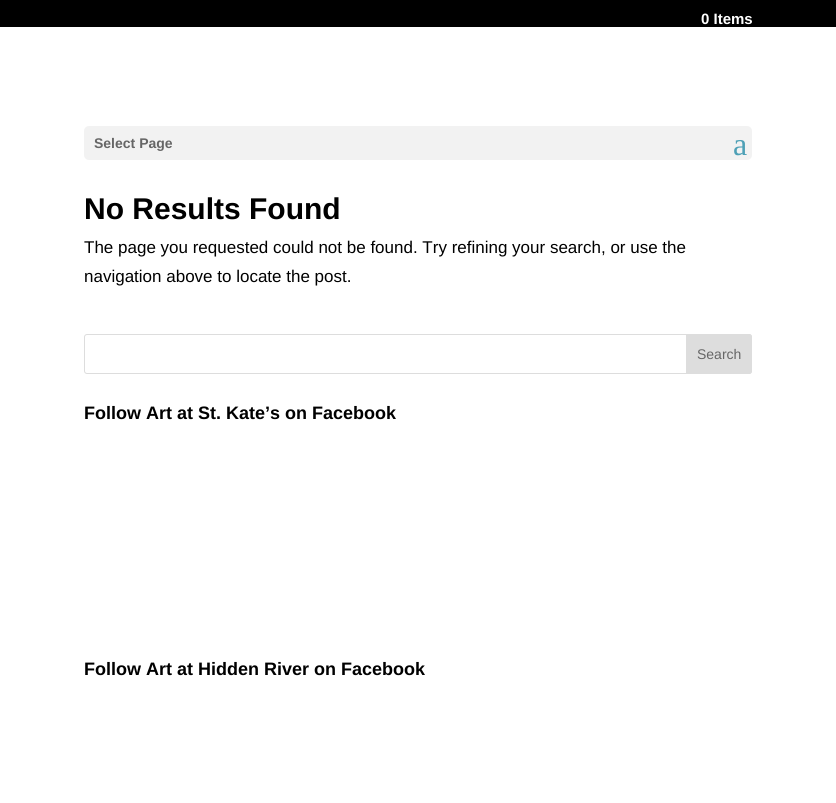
#include <cairo.h>
#include <math.h>
#include <stddef.h>

static cairo_t *ctx;

static void use_color(int r, int g, int b) {
    cairo_set_source_rgb(ctx, r / 255.0, g / 255.0, b / 255.0);
}

static void round_rect(double x, double y, double w, double h, double r) {
    cairo_new_sub_path(ctx);
    cairo_arc(ctx, x + w - r, y + h - r, r, 0, M_PI / 2);
    cairo_arc(ctx, x + r, y + h - r, r, M_PI / 2, M_PI);
    cairo_arc(ctx, x + r, y + r, r, M_PI, 1.5 * M_PI);
    cairo_arc(ctx, x + w - r, y + r, r, 1.5 * M_PI, 2 * M_PI);
    cairo_close_path(ctx);
}

int main(void) {
    cairo_surface_t *surface = cairo_image_surface_create(CAIRO_FORMAT_RGB24, 836, 803);
    ctx = cairo_create(surface);
    cairo_font_options_t *options = cairo_font_options_create();
    cairo_font_options_set_hint_metrics(options, CAIRO_HINT_METRICS_OFF);
    cairo_font_options_set_hint_style(options, CAIRO_HINT_STYLE_NONE);
    cairo_set_font_options(ctx, options);
    cairo_set_miter_limit(ctx, 4);
    use_color(255, 255, 255);
    cairo_paint(ctx);
    use_color(0, 0, 0);
    cairo_rectangle(ctx, 0, 0, 836, 27);
    cairo_fill(ctx);
    cairo_select_font_face(ctx, "Liberation Sans", CAIRO_FONT_SLANT_NORMAL, CAIRO_FONT_WEIGHT_BOLD);
    cairo_set_font_size(ctx, 15);
    use_color(255, 255, 255);
    cairo_move_to(ctx, 701, 24);
    cairo_show_text(ctx, "0 Items");
    use_color(242, 242, 242);
    round_rect(84, 126, 668, 34, 5);
    cairo_fill(ctx);
    cairo_set_font_size(ctx, 14);
    use_color(102, 102, 102);
    cairo_move_to(ctx, 94, 148);
    cairo_show_text(ctx, "Select Page");
    cairo_select_font_face(ctx, "Liberation Serif", CAIRO_FONT_SLANT_NORMAL, CAIRO_FONT_WEIGHT_NORMAL);
    cairo_set_font_size(ctx, 32);
    use_color(78, 160, 182);
    cairo_move_to(ctx, 733, 155);
    cairo_show_text(ctx, "a");
    cairo_select_font_face(ctx, "Liberation Sans", CAIRO_FONT_SLANT_NORMAL, CAIRO_FONT_WEIGHT_BOLD);
    cairo_set_font_size(ctx, 30);
    use_color(0, 0, 0);
    cairo_move_to(ctx, 84, 219);
    cairo_show_text(ctx, "No Results Found");
    cairo_select_font_face(ctx, "Liberation Sans", CAIRO_FONT_SLANT_NORMAL, CAIRO_FONT_WEIGHT_NORMAL);
    cairo_set_font_size(ctx, 17);
    cairo_move_to(ctx, 84, 253);
    cairo_show_text(ctx, "The page you requested could not be found. Try refining your search, or use the");
    cairo_move_to(ctx, 84, 282);
    cairo_show_text(ctx, "navigation above to locate the post.");
    round_rect(84.5, 334.5, 667, 39, 2.5);
    use_color(221, 221, 221);
    cairo_set_line_width(ctx, 1);
    cairo_stroke(ctx);
    cairo_new_path(ctx);
    cairo_move_to(ctx, 686.5, 334.5);
    cairo_line_to(ctx, 749, 334.5);
    cairo_curve_to(ctx, 750.5, 334.5, 751.5, 335.5, 751.5, 337);
    cairo_line_to(ctx, 751.5, 371);
    cairo_curve_to(ctx, 751.5, 372.5, 750.5, 373.5, 749, 373.5);
    cairo_line_to(ctx, 686.5, 373.5);
    cairo_close_path(ctx);
    cairo_fill_preserve(ctx);
    cairo_stroke(ctx);
    cairo_set_font_size(ctx, 14);
    use_color(102, 102, 102);
    cairo_move_to(ctx, 697, 359);
    cairo_show_text(ctx, "Search");
    cairo_select_font_face(ctx, "Liberation Sans", CAIRO_FONT_SLANT_NORMAL, CAIRO_FONT_WEIGHT_BOLD);
    cairo_set_font_size(ctx, 18);
    use_color(0, 0, 0);
    cairo_move_to(ctx, 84, 419);
    cairo_show_text(ctx, "Follow Art at St. Kate’s on Facebook");
    cairo_move_to(ctx, 84, 675);
    cairo_show_text(ctx, "Follow Art at Hidden River on Facebook");
    cairo_surface_write_to_png(surface, "result.png");
    cairo_font_options_destroy(options);
    cairo_destroy(ctx);
    cairo_surface_destroy(surface);
    return 0;
}
